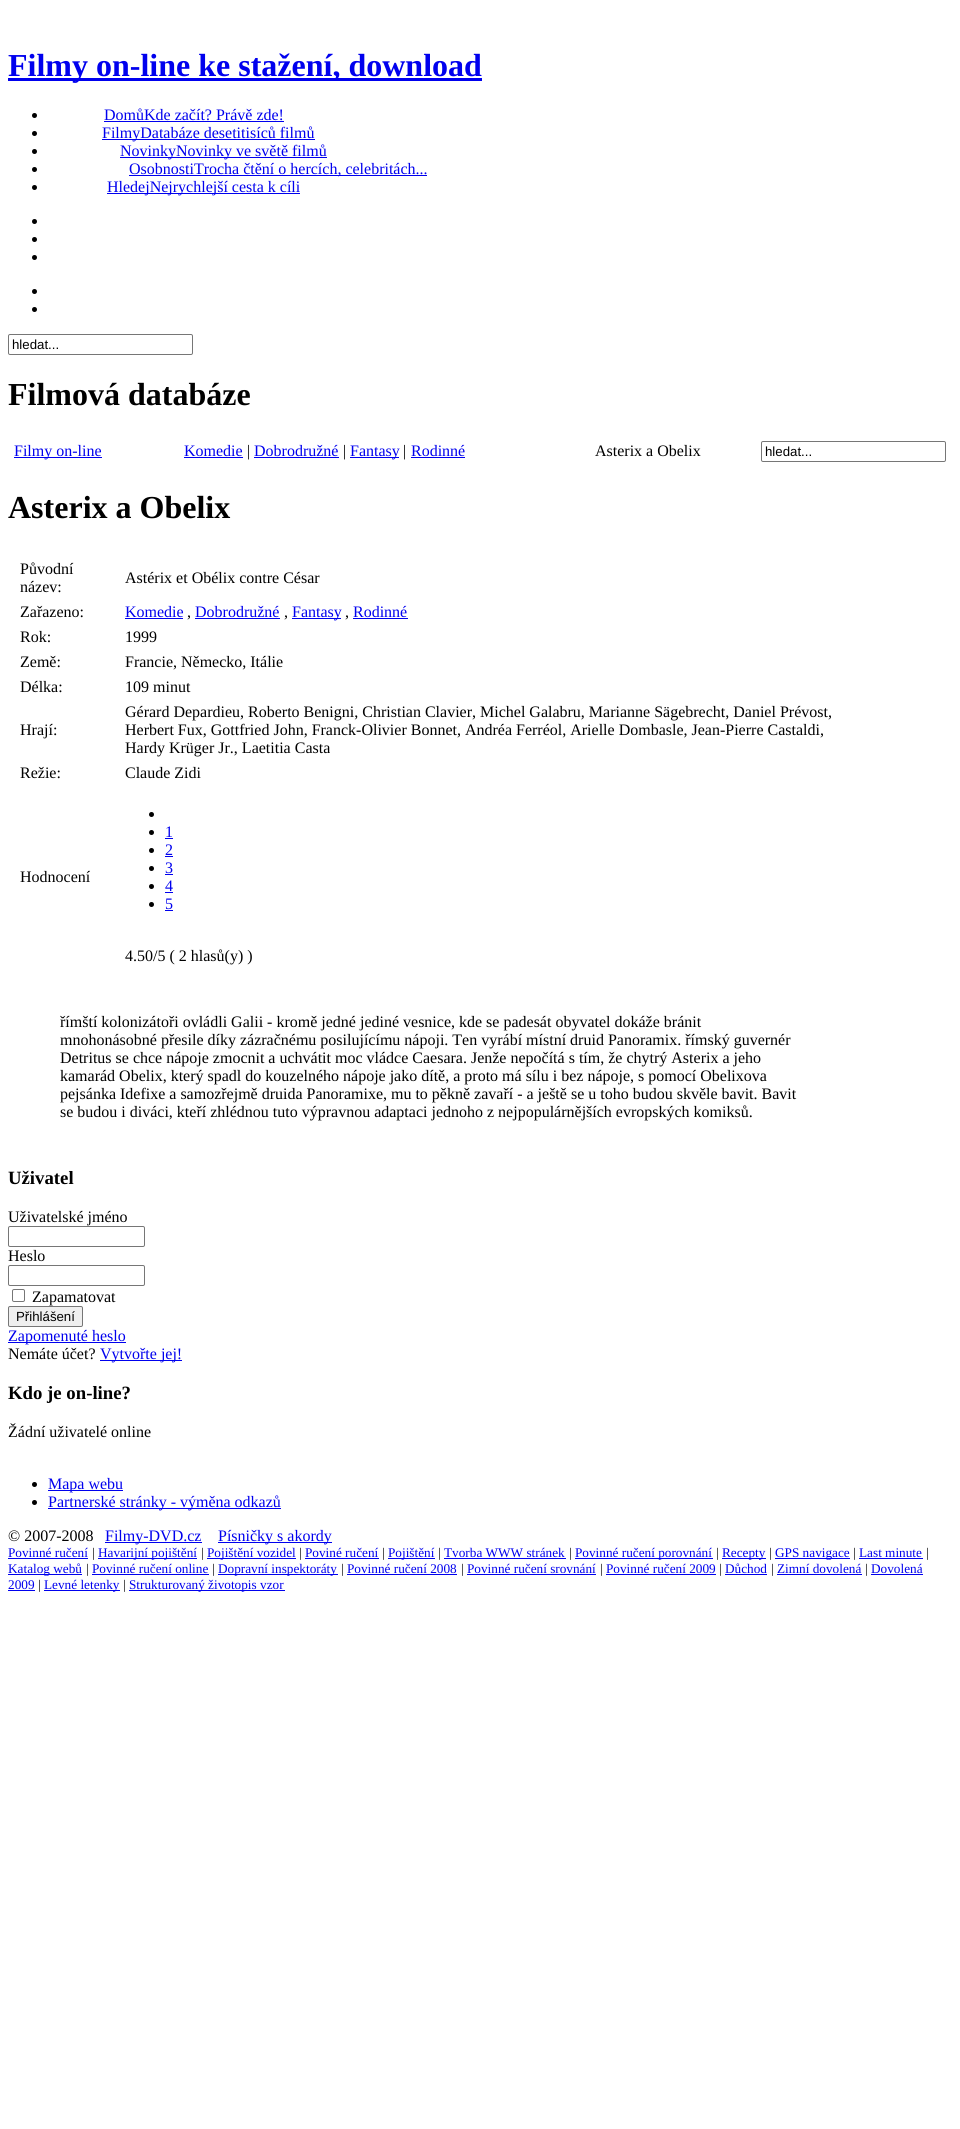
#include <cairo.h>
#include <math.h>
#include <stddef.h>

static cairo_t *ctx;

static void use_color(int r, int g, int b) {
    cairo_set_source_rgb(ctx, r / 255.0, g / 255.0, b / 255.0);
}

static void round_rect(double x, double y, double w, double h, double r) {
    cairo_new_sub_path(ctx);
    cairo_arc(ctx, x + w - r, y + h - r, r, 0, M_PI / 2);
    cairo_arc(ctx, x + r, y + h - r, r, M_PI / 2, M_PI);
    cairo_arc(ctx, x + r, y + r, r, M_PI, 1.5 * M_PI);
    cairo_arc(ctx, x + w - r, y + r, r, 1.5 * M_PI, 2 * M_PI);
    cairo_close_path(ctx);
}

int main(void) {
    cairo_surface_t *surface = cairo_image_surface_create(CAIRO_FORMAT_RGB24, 960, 2129);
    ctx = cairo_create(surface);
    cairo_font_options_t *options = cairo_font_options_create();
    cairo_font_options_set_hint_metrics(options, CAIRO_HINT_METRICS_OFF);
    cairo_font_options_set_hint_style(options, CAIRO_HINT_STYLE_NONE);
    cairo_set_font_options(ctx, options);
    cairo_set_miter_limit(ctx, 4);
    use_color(255, 255, 255);
    cairo_paint(ctx);
    use_color(0, 0, 238);
    cairo_rectangle(ctx, 8, 78, 474, 3);
    cairo_fill(ctx);
    cairo_select_font_face(ctx, "Liberation Serif", CAIRO_FONT_SLANT_NORMAL, CAIRO_FONT_WEIGHT_BOLD);
    cairo_set_font_size(ctx, 32);
    cairo_move_to(ctx, 8, 76);
    cairo_show_text(ctx, "Filmy on-line ke stažení, download");
    use_color(0, 0, 0);
    cairo_new_path(ctx);
    cairo_arc(ctx, 34.5, 115.5, 2.5, 0, 2 * M_PI);
    cairo_fill(ctx);
    cairo_select_font_face(ctx, "Liberation Serif", CAIRO_FONT_SLANT_NORMAL, CAIRO_FONT_WEIGHT_NORMAL);
    cairo_set_font_size(ctx, 16);
    use_color(0, 0, 238);
    cairo_move_to(ctx, 104, 120);
    cairo_show_text(ctx, "DomůKde začít? Právě zde!");
    cairo_rectangle(ctx, 104, 121, 180, 1);
    cairo_fill(ctx);
    use_color(0, 0, 0);
    cairo_arc(ctx, 34.5, 133.5, 2.5, 0, 2 * M_PI);
    cairo_fill(ctx);
    use_color(0, 0, 238);
    cairo_rectangle(ctx, 102, 139, 38, 1);
    cairo_fill(ctx);
    cairo_move_to(ctx, 102, 138);
    cairo_show_text(ctx, "FilmyDatabáze desetitisíců filmů");
    cairo_rectangle(ctx, 140, 139, 175, 1);
    cairo_fill(ctx);
    use_color(0, 0, 0);
    cairo_arc(ctx, 34.5, 151.5, 2.5, 0, 2 * M_PI);
    cairo_fill(ctx);
    use_color(0, 0, 238);
    cairo_rectangle(ctx, 120, 157, 207, 1);
    cairo_fill(ctx);
    cairo_move_to(ctx, 120, 156);
    cairo_show_text(ctx, "NovinkyNovinky ve světě filmů");
    use_color(0, 0, 0);
    cairo_new_path(ctx);
    cairo_arc(ctx, 34.5, 169.5, 2.5, 0, 2 * M_PI);
    cairo_fill(ctx);
    use_color(0, 0, 238);
    cairo_rectangle(ctx, 129, 175, 298, 1);
    cairo_fill(ctx);
    cairo_move_to(ctx, 129, 174);
    cairo_show_text(ctx, "OsobnostiTrocha čtění o hercích, celebritách...");
    use_color(0, 0, 0);
    cairo_new_path(ctx);
    cairo_arc(ctx, 34.5, 187.5, 2.5, 0, 2 * M_PI);
    cairo_fill(ctx);
    use_color(0, 0, 238);
    cairo_rectangle(ctx, 107, 193, 193, 1);
    cairo_fill(ctx);
    cairo_move_to(ctx, 107, 192);
    cairo_show_text(ctx, "HledejNejrychlejší cesta k cíli");
    use_color(0, 0, 0);
    cairo_new_path(ctx);
    cairo_arc(ctx, 34.5, 221.5, 2.5, 0, 2 * M_PI);
    cairo_fill(ctx);
    cairo_arc(ctx, 34.5, 239.5, 2.5, 0, 2 * M_PI);
    cairo_fill(ctx);
    cairo_arc(ctx, 34.5, 257.5, 2.5, 0, 2 * M_PI);
    cairo_fill(ctx);
    cairo_arc(ctx, 34.5, 291.5, 2.5, 0, 2 * M_PI);
    cairo_fill(ctx);
    cairo_arc(ctx, 34.5, 309.5, 2.5, 0, 2 * M_PI);
    cairo_fill(ctx);
    round_rect(8.5, 334.5, 184, 20, 1.5);
    use_color(118, 118, 118);
    cairo_set_line_width(ctx, 1);
    cairo_stroke(ctx);
    cairo_select_font_face(ctx, "Liberation Sans", CAIRO_FONT_SLANT_NORMAL, CAIRO_FONT_WEIGHT_NORMAL);
    cairo_set_font_size(ctx, 13.25);
    use_color(0, 0, 0);
    cairo_move_to(ctx, 12, 349);
    cairo_show_text(ctx, "hledat...");
    cairo_select_font_face(ctx, "Liberation Serif", CAIRO_FONT_SLANT_NORMAL, CAIRO_FONT_WEIGHT_BOLD);
    cairo_set_font_size(ctx, 32);
    cairo_move_to(ctx, 8, 405);
    cairo_show_text(ctx, "Filmová databáze");
    use_color(0, 0, 238);
    cairo_rectangle(ctx, 14, 457, 88, 1);
    cairo_fill(ctx);
    cairo_select_font_face(ctx, "Liberation Serif", CAIRO_FONT_SLANT_NORMAL, CAIRO_FONT_WEIGHT_NORMAL);
    cairo_set_font_size(ctx, 16);
    cairo_move_to(ctx, 14, 456);
    cairo_show_text(ctx, "Filmy on-line");
    cairo_move_to(ctx, 184, 456);
    cairo_show_text(ctx, "Komedie");
    cairo_rectangle(ctx, 184, 457, 59, 1);
    cairo_fill(ctx);
    use_color(0, 0, 0);
    cairo_move_to(ctx, 247, 456);
    cairo_show_text(ctx, "|");
    use_color(0, 0, 238);
    cairo_move_to(ctx, 254, 456);
    cairo_show_text(ctx, "Dobrodružné");
    cairo_rectangle(ctx, 254, 457, 85, 1);
    cairo_fill(ctx);
    use_color(0, 0, 0);
    cairo_move_to(ctx, 343, 456);
    cairo_show_text(ctx, "|");
    use_color(0, 0, 238);
    cairo_rectangle(ctx, 350, 457, 49, 1);
    cairo_fill(ctx);
    cairo_move_to(ctx, 350, 456);
    cairo_show_text(ctx, "Fantasy");
    use_color(0, 0, 0);
    cairo_move_to(ctx, 403, 456);
    cairo_show_text(ctx, "|");
    use_color(0, 0, 238);
    cairo_move_to(ctx, 411, 456);
    cairo_show_text(ctx, "Rodinné");
    cairo_rectangle(ctx, 411, 457, 54, 1);
    cairo_fill(ctx);
    use_color(0, 0, 0);
    cairo_move_to(ctx, 595, 456);
    cairo_show_text(ctx, "Asterix a Obelix");
    round_rect(761.5, 441.5, 184, 20, 1.5);
    use_color(118, 118, 118);
    cairo_stroke(ctx);
    cairo_select_font_face(ctx, "Liberation Sans", CAIRO_FONT_SLANT_NORMAL, CAIRO_FONT_WEIGHT_NORMAL);
    cairo_set_font_size(ctx, 13.25);
    use_color(0, 0, 0);
    cairo_move_to(ctx, 765, 456);
    cairo_show_text(ctx, "hledat...");
    cairo_select_font_face(ctx, "Liberation Serif", CAIRO_FONT_SLANT_NORMAL, CAIRO_FONT_WEIGHT_BOLD);
    cairo_set_font_size(ctx, 32);
    cairo_move_to(ctx, 8, 518);
    cairo_show_text(ctx, "Asterix a Obelix");
    cairo_select_font_face(ctx, "Liberation Serif", CAIRO_FONT_SLANT_NORMAL, CAIRO_FONT_WEIGHT_NORMAL);
    cairo_set_font_size(ctx, 16);
    cairo_move_to(ctx, 20, 574);
    cairo_show_text(ctx, "Původní");
    cairo_move_to(ctx, 20, 592);
    cairo_show_text(ctx, "název:");
    cairo_move_to(ctx, 125, 583);
    cairo_show_text(ctx, "Astérix et Obélix contre César");
    cairo_move_to(ctx, 20, 617);
    cairo_show_text(ctx, "Zařazeno:");
    use_color(0, 0, 238);
    cairo_move_to(ctx, 125, 617);
    cairo_show_text(ctx, "Komedie");
    cairo_rectangle(ctx, 125, 618, 58, 1);
    cairo_fill(ctx);
    use_color(0, 0, 0);
    cairo_move_to(ctx, 187, 617);
    cairo_show_text(ctx, ",");
    use_color(0, 0, 238);
    cairo_move_to(ctx, 195, 617);
    cairo_show_text(ctx, "Dobrodružné");
    cairo_rectangle(ctx, 195, 618, 85, 1);
    cairo_fill(ctx);
    use_color(0, 0, 0);
    cairo_move_to(ctx, 284, 617);
    cairo_show_text(ctx, ",");
    use_color(0, 0, 238);
    cairo_rectangle(ctx, 292, 618, 49, 1);
    cairo_fill(ctx);
    cairo_move_to(ctx, 292, 617);
    cairo_show_text(ctx, "Fantasy");
    use_color(0, 0, 0);
    cairo_move_to(ctx, 345, 617);
    cairo_show_text(ctx, ",");
    use_color(0, 0, 238);
    cairo_move_to(ctx, 353, 617);
    cairo_show_text(ctx, "Rodinné");
    cairo_rectangle(ctx, 353, 618, 55, 1);
    cairo_fill(ctx);
    use_color(0, 0, 0);
    cairo_move_to(ctx, 20, 642);
    cairo_show_text(ctx, "Rok:");
    cairo_move_to(ctx, 125, 642);
    cairo_show_text(ctx, "1999");
    cairo_move_to(ctx, 20, 667);
    cairo_show_text(ctx, "Země:");
    cairo_move_to(ctx, 125, 667);
    cairo_show_text(ctx, "Francie, Německo, Itálie");
    cairo_move_to(ctx, 20, 692);
    cairo_show_text(ctx, "Délka:");
    cairo_move_to(ctx, 125, 692);
    cairo_show_text(ctx, "109 minut");
    cairo_move_to(ctx, 20, 735);
    cairo_show_text(ctx, "Hrají:");
    cairo_move_to(ctx, 125, 717);
    cairo_show_text(ctx, "Gérard Depardieu, Roberto Benigni, Christian Clavier, Michel Galabru, Marianne Sägebrecht, Daniel Prévost,");
    cairo_move_to(ctx, 125, 735);
    cairo_show_text(ctx, "Herbert Fux, Gottfried John, Franck-Olivier Bonnet, Andréa Ferréol, Arielle Dombasle, Jean-Pierre Castaldi,");
    cairo_move_to(ctx, 125, 753);
    cairo_show_text(ctx, "Hardy Krüger Jr., Laetitia Casta");
    cairo_move_to(ctx, 20, 778);
    cairo_show_text(ctx, "Režie:");
    cairo_move_to(ctx, 125, 778);
    cairo_show_text(ctx, "Claude Zidi");
    cairo_move_to(ctx, 20, 882);
    cairo_show_text(ctx, "Hodnocení");
    cairo_new_path(ctx);
    cairo_arc(ctx, 151.5, 814.5, 2.5, 0, 2 * M_PI);
    cairo_fill(ctx);
    cairo_arc(ctx, 151.5, 832.5, 2.5, 0, 2 * M_PI);
    cairo_fill(ctx);
    use_color(0, 0, 238);
    cairo_move_to(ctx, 165, 837);
    cairo_show_text(ctx, "1");
    cairo_rectangle(ctx, 165, 838, 8, 1);
    cairo_fill(ctx);
    use_color(0, 0, 0);
    cairo_arc(ctx, 151.5, 850.5, 2.5, 0, 2 * M_PI);
    cairo_fill(ctx);
    use_color(0, 0, 238);
    cairo_move_to(ctx, 165, 855);
    cairo_show_text(ctx, "2");
    cairo_rectangle(ctx, 165, 856, 8, 1);
    cairo_fill(ctx);
    use_color(0, 0, 0);
    cairo_arc(ctx, 151.5, 868.5, 2.5, 0, 2 * M_PI);
    cairo_fill(ctx);
    use_color(0, 0, 238);
    cairo_move_to(ctx, 165, 873);
    cairo_show_text(ctx, "3");
    cairo_rectangle(ctx, 165, 874, 8, 1);
    cairo_fill(ctx);
    use_color(0, 0, 0);
    cairo_arc(ctx, 151.5, 886.5, 2.5, 0, 2 * M_PI);
    cairo_fill(ctx);
    use_color(0, 0, 238);
    cairo_move_to(ctx, 165, 891);
    cairo_show_text(ctx, "4");
    cairo_rectangle(ctx, 165, 892, 8, 1);
    cairo_fill(ctx);
    use_color(0, 0, 0);
    cairo_arc(ctx, 151.5, 904.5, 2.5, 0, 2 * M_PI);
    cairo_fill(ctx);
    use_color(0, 0, 238);
    cairo_move_to(ctx, 165, 909);
    cairo_show_text(ctx, "5");
    cairo_rectangle(ctx, 165, 910, 8, 1);
    cairo_fill(ctx);
    use_color(0, 0, 0);
    cairo_move_to(ctx, 125, 961);
    cairo_show_text(ctx, "4.50/5 ( 2 hlasů(y) )");
    cairo_move_to(ctx, 60, 1027);
    cairo_show_text(ctx, "římští kolonizátoři ovládli Galii - kromě jedné jediné vesnice, kde se padesát obyvatel dokáže bránit");
    cairo_move_to(ctx, 60, 1045);
    cairo_show_text(ctx, "mnohonásobné přesile díky zázračnému posilujícímu nápoji. Ten vyrábí místní druid Panoramix. římský guvernér");
    cairo_move_to(ctx, 60, 1063);
    cairo_show_text(ctx, "Detritus se chce nápoje zmocnit a uchvátit moc vládce Caesara. Jenže nepočítá s tím, že chytrý Asterix a jeho");
    cairo_move_to(ctx, 60, 1081);
    cairo_show_text(ctx, "kamarád Obelix, který spadl do kouzelného nápoje jako dítě, a proto má sílu i bez nápoje, s pomocí Obelixova");
    cairo_move_to(ctx, 60, 1099);
    cairo_show_text(ctx, "pejsánka Idefixe a samozřejmě druida Panoramixe, mu to pěkně zavaří - a ještě se u toho budou skvěle bavit. Bavit");
    cairo_move_to(ctx, 60, 1117);
    cairo_show_text(ctx, "se budou i diváci, kteří zhlédnou tuto výpravnou adaptaci jednoho z nejpopulárnějších evropských komiksů.");
    cairo_select_font_face(ctx, "Liberation Serif", CAIRO_FONT_SLANT_NORMAL, CAIRO_FONT_WEIGHT_BOLD);
    cairo_set_font_size(ctx, 18.75);
    cairo_move_to(ctx, 8, 1184);
    cairo_show_text(ctx, "Uživatel");
    cairo_select_font_face(ctx, "Liberation Serif", CAIRO_FONT_SLANT_NORMAL, CAIRO_FONT_WEIGHT_NORMAL);
    cairo_set_font_size(ctx, 16);
    cairo_move_to(ctx, 8, 1222);
    cairo_show_text(ctx, "Uživatelské jméno");
    round_rect(8.5, 1226.5, 136, 20, 1.5);
    use_color(118, 118, 118);
    cairo_stroke(ctx);
    use_color(0, 0, 0);
    cairo_move_to(ctx, 8, 1261);
    cairo_show_text(ctx, "Heslo");
    round_rect(8.5, 1265.5, 136, 20, 1.5);
    use_color(118, 118, 118);
    cairo_stroke(ctx);
    round_rect(12.5, 1289.5, 12, 12, 1.5);
    cairo_stroke(ctx);
    use_color(0, 0, 0);
    cairo_move_to(ctx, 32, 1302);
    cairo_show_text(ctx, "Zapamatovat");
    use_color(239, 239, 239);
    round_rect(8.5, 1306.5, 74, 20, 1.5);
    cairo_fill_preserve(ctx);
    use_color(118, 118, 118);
    cairo_stroke(ctx);
    cairo_select_font_face(ctx, "Liberation Sans", CAIRO_FONT_SLANT_NORMAL, CAIRO_FONT_WEIGHT_NORMAL);
    cairo_set_font_size(ctx, 13.25);
    use_color(0, 0, 0);
    cairo_move_to(ctx, 16, 1321);
    cairo_show_text(ctx, "Přihlášení");
    use_color(0, 0, 238);
    cairo_rectangle(ctx, 8, 1342, 118, 1);
    cairo_fill(ctx);
    cairo_select_font_face(ctx, "Liberation Serif", CAIRO_FONT_SLANT_NORMAL, CAIRO_FONT_WEIGHT_NORMAL);
    cairo_set_font_size(ctx, 16);
    cairo_move_to(ctx, 8, 1341);
    cairo_show_text(ctx, "Zapomenuté heslo");
    use_color(0, 0, 0);
    cairo_move_to(ctx, 8, 1359);
    cairo_show_text(ctx, "Nemáte účet?");
    use_color(0, 0, 238);
    cairo_rectangle(ctx, 100, 1360, 82, 1);
    cairo_fill(ctx);
    cairo_move_to(ctx, 100, 1359);
    cairo_show_text(ctx, "Vytvořte jej!");
    cairo_select_font_face(ctx, "Liberation Serif", CAIRO_FONT_SLANT_NORMAL, CAIRO_FONT_WEIGHT_BOLD);
    cairo_set_font_size(ctx, 18.75);
    use_color(0, 0, 0);
    cairo_move_to(ctx, 8, 1399);
    cairo_show_text(ctx, "Kdo je on-line?");
    cairo_select_font_face(ctx, "Liberation Serif", CAIRO_FONT_SLANT_NORMAL, CAIRO_FONT_WEIGHT_NORMAL);
    cairo_set_font_size(ctx, 16);
    cairo_move_to(ctx, 8, 1437);
    cairo_show_text(ctx, "Žádní uživatelé online");
    cairo_new_path(ctx);
    cairo_arc(ctx, 34.5, 1484.5, 2.5, 0, 2 * M_PI);
    cairo_fill(ctx);
    use_color(0, 0, 238);
    cairo_rectangle(ctx, 48, 1490, 75, 1);
    cairo_fill(ctx);
    cairo_move_to(ctx, 48, 1489);
    cairo_show_text(ctx, "Mapa webu");
    use_color(0, 0, 0);
    cairo_new_path(ctx);
    cairo_arc(ctx, 34.5, 1502.5, 2.5, 0, 2 * M_PI);
    cairo_fill(ctx);
    use_color(0, 0, 238);
    cairo_rectangle(ctx, 48, 1508, 233, 1);
    cairo_fill(ctx);
    cairo_move_to(ctx, 48, 1507);
    cairo_show_text(ctx, "Partnerské stránky - výměna odkazů");
    use_color(0, 0, 0);
    cairo_move_to(ctx, 8, 1541);
    cairo_show_text(ctx, "© 2007-2008");
    use_color(0, 0, 238);
    cairo_rectangle(ctx, 105, 1542, 97, 1);
    cairo_fill(ctx);
    cairo_move_to(ctx, 105, 1541);
    cairo_show_text(ctx, "Filmy-DVD.cz");
    cairo_rectangle(ctx, 218, 1542, 114, 1);
    cairo_fill(ctx);
    cairo_move_to(ctx, 218, 1541);
    cairo_show_text(ctx, "Písničky s akordy");
    cairo_set_font_size(ctx, 13.25);
    cairo_move_to(ctx, 8, 1557);
    cairo_show_text(ctx, "Povinné ručení");
    cairo_rectangle(ctx, 8, 1558, 80, 1);
    cairo_fill(ctx);
    use_color(0, 0, 0);
    cairo_move_to(ctx, 92, 1557);
    cairo_show_text(ctx, "|");
    use_color(0, 0, 238);
    cairo_rectangle(ctx, 98, 1558, 99, 1);
    cairo_fill(ctx);
    cairo_move_to(ctx, 98, 1557);
    cairo_show_text(ctx, "Havarijní pojištění");
    use_color(0, 0, 0);
    cairo_move_to(ctx, 201, 1557);
    cairo_show_text(ctx, "|");
    use_color(0, 0, 238);
    cairo_rectangle(ctx, 207, 1558, 89, 1);
    cairo_fill(ctx);
    cairo_move_to(ctx, 207, 1557);
    cairo_show_text(ctx, "Pojištění vozidel");
    use_color(0, 0, 0);
    cairo_move_to(ctx, 299, 1557);
    cairo_show_text(ctx, "|");
    use_color(0, 0, 238);
    cairo_move_to(ctx, 305, 1557);
    cairo_show_text(ctx, "Poviné ručení");
    cairo_rectangle(ctx, 305, 1558, 74, 1);
    cairo_fill(ctx);
    use_color(0, 0, 0);
    cairo_move_to(ctx, 382, 1557);
    cairo_show_text(ctx, "|");
    use_color(0, 0, 238);
    cairo_rectangle(ctx, 388, 1558, 47, 1);
    cairo_fill(ctx);
    cairo_move_to(ctx, 388, 1557);
    cairo_show_text(ctx, "Pojištění");
    use_color(0, 0, 0);
    cairo_move_to(ctx, 438, 1557);
    cairo_show_text(ctx, "|");
    use_color(0, 0, 238);
    cairo_move_to(ctx, 444, 1557);
    cairo_show_text(ctx, "Tvorba WWW stránek");
    cairo_rectangle(ctx, 444, 1558, 122, 1);
    cairo_fill(ctx);
    use_color(0, 0, 0);
    cairo_move_to(ctx, 569, 1557);
    cairo_show_text(ctx, "|");
    use_color(0, 0, 238);
    cairo_rectangle(ctx, 575, 1558, 138, 1);
    cairo_fill(ctx);
    cairo_move_to(ctx, 575, 1557);
    cairo_show_text(ctx, "Povinné ručení porovnání");
    use_color(0, 0, 0);
    cairo_move_to(ctx, 716, 1557);
    cairo_show_text(ctx, "|");
    use_color(0, 0, 238);
    cairo_rectangle(ctx, 722, 1558, 44, 1);
    cairo_fill(ctx);
    cairo_move_to(ctx, 722, 1557);
    cairo_show_text(ctx, "Recepty");
    use_color(0, 0, 0);
    cairo_move_to(ctx, 769, 1557);
    cairo_show_text(ctx, "|");
    use_color(0, 0, 238);
    cairo_rectangle(ctx, 775, 1558, 75, 1);
    cairo_fill(ctx);
    cairo_move_to(ctx, 775, 1557);
    cairo_show_text(ctx, "GPS navigace");
    use_color(0, 0, 0);
    cairo_move_to(ctx, 853, 1557);
    cairo_show_text(ctx, "|");
    use_color(0, 0, 238);
    cairo_move_to(ctx, 859, 1557);
    cairo_show_text(ctx, "Last minute");
    cairo_rectangle(ctx, 859, 1558, 64, 1);
    cairo_fill(ctx);
    use_color(0, 0, 0);
    cairo_move_to(ctx, 926, 1557);
    cairo_show_text(ctx, "|");
    use_color(0, 0, 238);
    cairo_rectangle(ctx, 8, 1574, 74, 1);
    cairo_fill(ctx);
    cairo_move_to(ctx, 8, 1573);
    cairo_show_text(ctx, "Katalog webů");
    use_color(0, 0, 0);
    cairo_move_to(ctx, 86, 1573);
    cairo_show_text(ctx, "|");
    use_color(0, 0, 238);
    cairo_move_to(ctx, 92, 1573);
    cairo_show_text(ctx, "Povinné ručení online");
    cairo_rectangle(ctx, 92, 1574, 117, 1);
    cairo_fill(ctx);
    use_color(0, 0, 0);
    cairo_move_to(ctx, 212, 1573);
    cairo_show_text(ctx, "|");
    use_color(0, 0, 238);
    cairo_rectangle(ctx, 218, 1574, 120, 1);
    cairo_fill(ctx);
    cairo_move_to(ctx, 218, 1573);
    cairo_show_text(ctx, "Dopravní inspektoráty");
    use_color(0, 0, 0);
    cairo_move_to(ctx, 341, 1573);
    cairo_show_text(ctx, "|");
    use_color(0, 0, 238);
    cairo_move_to(ctx, 347, 1573);
    cairo_show_text(ctx, "Povinné ručení 2008");
    cairo_rectangle(ctx, 347, 1574, 110, 1);
    cairo_fill(ctx);
    use_color(0, 0, 0);
    cairo_move_to(ctx, 461, 1573);
    cairo_show_text(ctx, "|");
    use_color(0, 0, 238);
    cairo_move_to(ctx, 467, 1573);
    cairo_show_text(ctx, "Povinné ručení srovnání");
    cairo_rectangle(ctx, 467, 1574, 129, 1);
    cairo_fill(ctx);
    use_color(0, 0, 0);
    cairo_move_to(ctx, 600, 1573);
    cairo_show_text(ctx, "|");
    use_color(0, 0, 238);
    cairo_move_to(ctx, 606, 1573);
    cairo_show_text(ctx, "Povinné ručení 2009");
    cairo_rectangle(ctx, 606, 1574, 110, 1);
    cairo_fill(ctx);
    use_color(0, 0, 0);
    cairo_move_to(ctx, 719, 1573);
    cairo_show_text(ctx, "|");
    use_color(0, 0, 238);
    cairo_move_to(ctx, 725, 1573);
    cairo_show_text(ctx, "Důchod");
    cairo_rectangle(ctx, 725, 1574, 42, 1);
    cairo_fill(ctx);
    use_color(0, 0, 0);
    cairo_move_to(ctx, 771, 1573);
    cairo_show_text(ctx, "|");
    use_color(0, 0, 238);
    cairo_move_to(ctx, 777, 1573);
    cairo_show_text(ctx, "Zimní dovolená");
    cairo_rectangle(ctx, 777, 1574, 85, 1);
    cairo_fill(ctx);
    use_color(0, 0, 0);
    cairo_move_to(ctx, 865, 1573);
    cairo_show_text(ctx, "|");
    use_color(0, 0, 238);
    cairo_move_to(ctx, 871, 1573);
    cairo_show_text(ctx, "Dovolená");
    cairo_rectangle(ctx, 871, 1574, 52, 1);
    cairo_fill(ctx);
    cairo_move_to(ctx, 8, 1589);
    cairo_show_text(ctx, "2009");
    cairo_rectangle(ctx, 8, 1590, 27, 1);
    cairo_fill(ctx);
    use_color(0, 0, 0);
    cairo_move_to(ctx, 38, 1589);
    cairo_show_text(ctx, "|");
    use_color(0, 0, 238);
    cairo_rectangle(ctx, 44, 1590, 76, 1);
    cairo_fill(ctx);
    cairo_move_to(ctx, 44, 1589);
    cairo_show_text(ctx, "Levné letenky");
    use_color(0, 0, 0);
    cairo_move_to(ctx, 123, 1589);
    cairo_show_text(ctx, "|");
    use_color(0, 0, 238);
    cairo_rectangle(ctx, 129, 1590, 156, 1);
    cairo_fill(ctx);
    cairo_move_to(ctx, 129, 1589);
    cairo_show_text(ctx, "Strukturovaný životopis vzor");
    cairo_surface_write_to_png(surface, "result.png");
    cairo_font_options_destroy(options);
    cairo_destroy(ctx);
    cairo_surface_destroy(surface);
    return 0;
}
